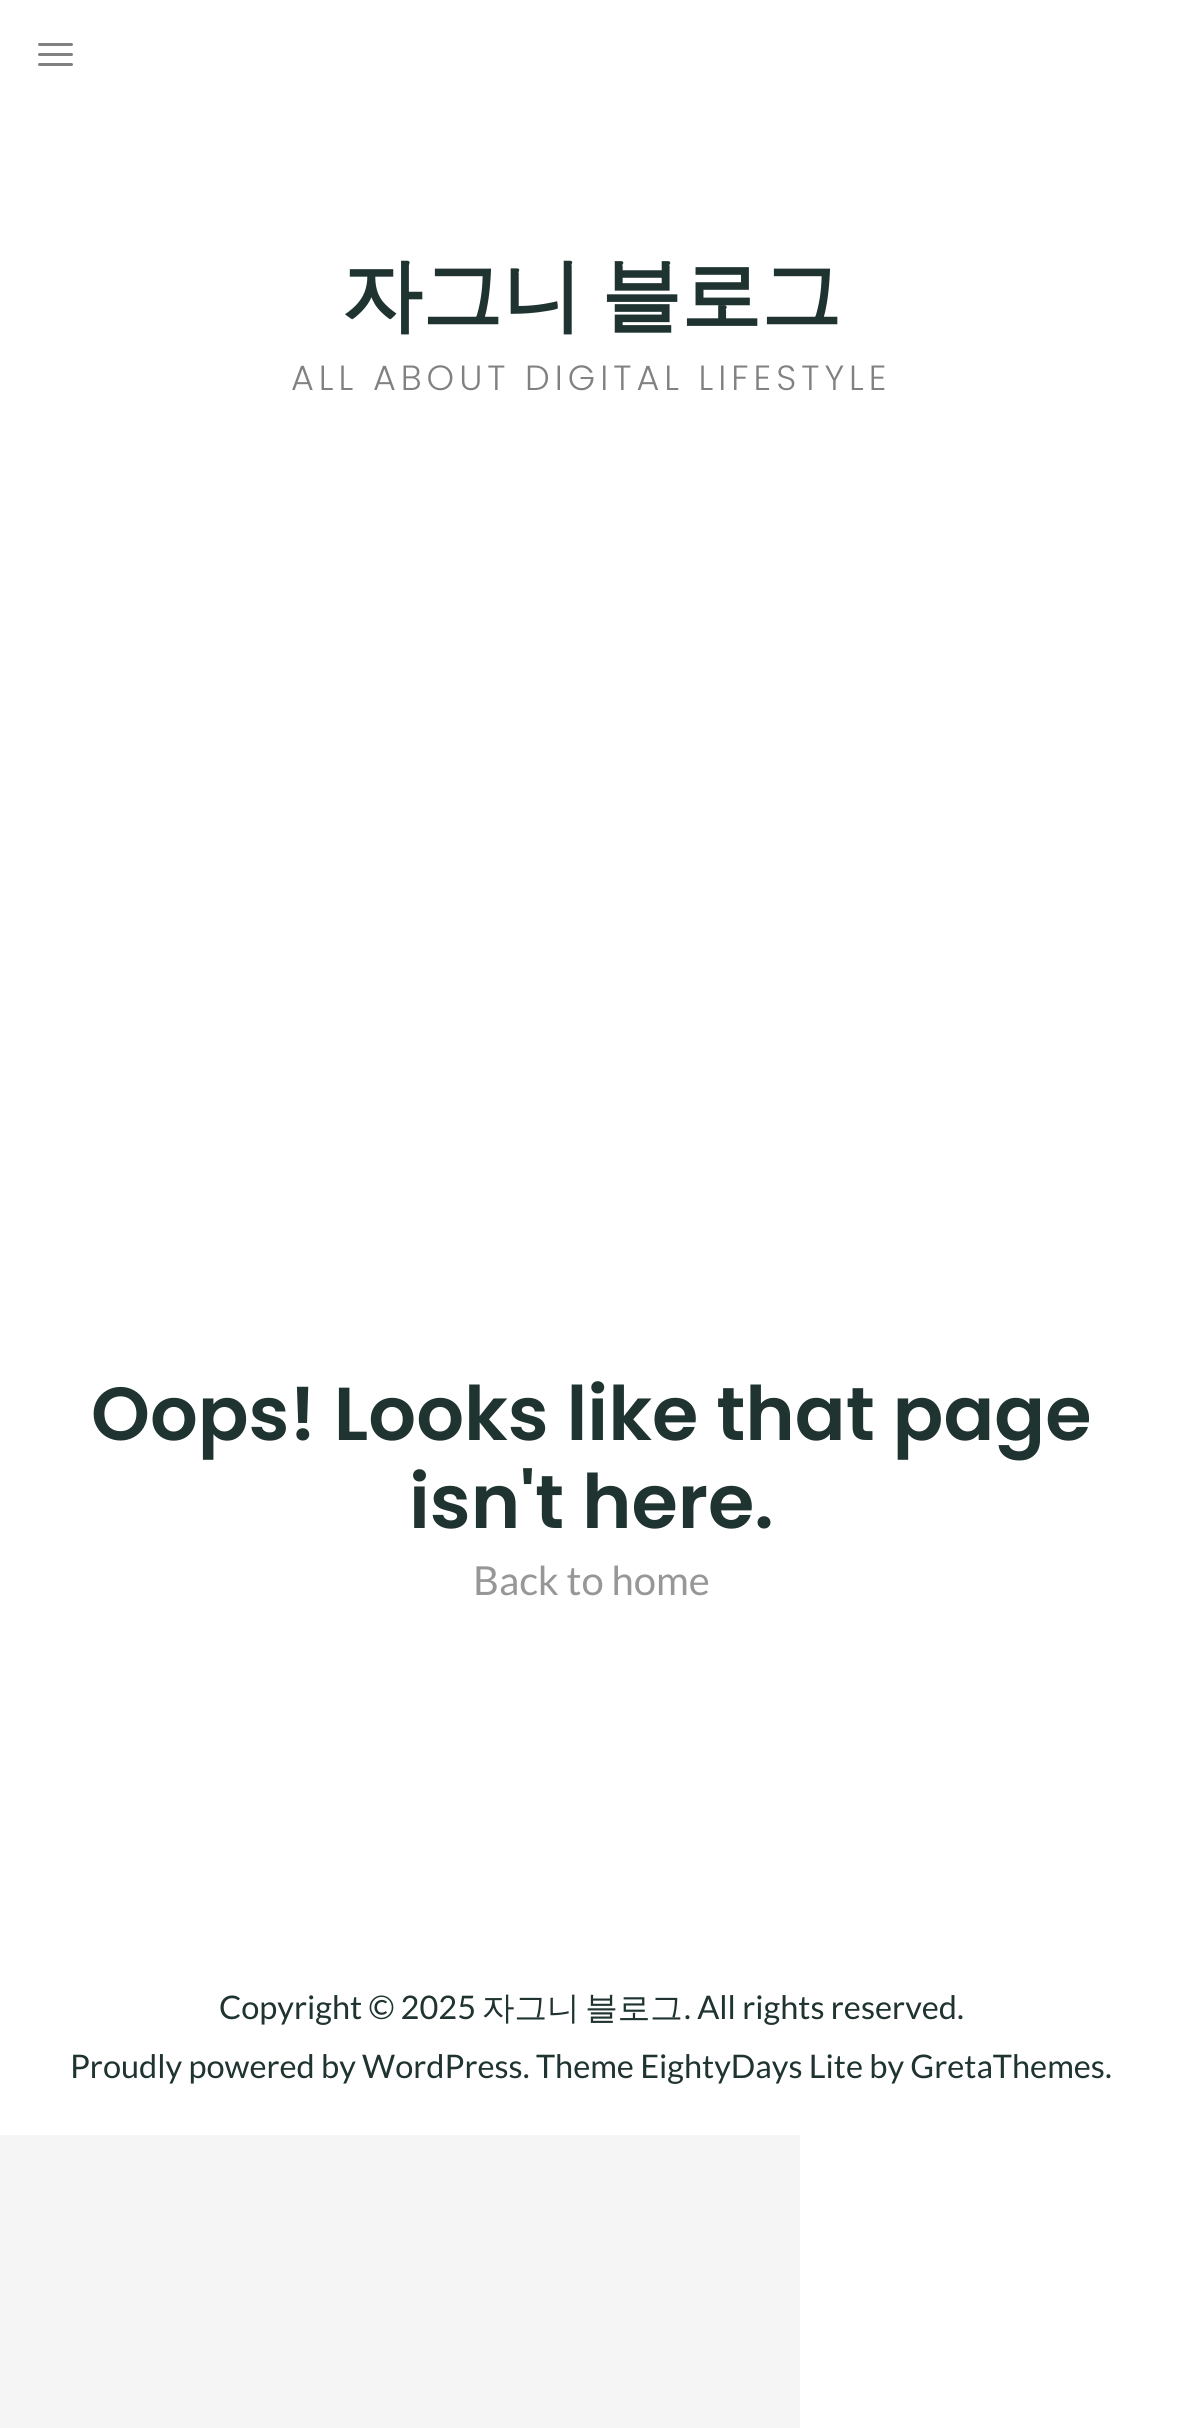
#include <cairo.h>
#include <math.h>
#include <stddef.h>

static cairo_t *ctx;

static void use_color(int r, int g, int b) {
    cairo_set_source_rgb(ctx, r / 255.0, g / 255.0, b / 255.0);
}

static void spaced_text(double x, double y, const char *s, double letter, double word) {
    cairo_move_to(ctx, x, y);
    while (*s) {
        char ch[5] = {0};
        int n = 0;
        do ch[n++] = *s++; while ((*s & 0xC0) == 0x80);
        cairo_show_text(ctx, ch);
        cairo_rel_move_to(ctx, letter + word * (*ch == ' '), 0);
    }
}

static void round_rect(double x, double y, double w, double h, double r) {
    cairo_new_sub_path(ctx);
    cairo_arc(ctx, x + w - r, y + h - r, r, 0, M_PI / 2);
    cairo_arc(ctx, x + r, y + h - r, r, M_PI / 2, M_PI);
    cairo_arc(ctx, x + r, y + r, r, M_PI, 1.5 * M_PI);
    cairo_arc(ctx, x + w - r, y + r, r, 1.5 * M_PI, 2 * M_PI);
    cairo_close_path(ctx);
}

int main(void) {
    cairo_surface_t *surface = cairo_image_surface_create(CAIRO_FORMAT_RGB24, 1182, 2428);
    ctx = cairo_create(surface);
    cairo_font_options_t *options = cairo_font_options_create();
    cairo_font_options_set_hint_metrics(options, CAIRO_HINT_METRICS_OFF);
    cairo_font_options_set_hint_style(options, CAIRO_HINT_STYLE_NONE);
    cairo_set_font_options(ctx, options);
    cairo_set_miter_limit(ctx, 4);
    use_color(255, 255, 255);
    cairo_paint(ctx);
    use_color(129, 129, 129);
    round_rect(38, 53, 35, 3, 1.5);
    cairo_fill(ctx);
    round_rect(38, 43, 35, 3, 1.5);
    cairo_fill(ctx);
    round_rect(38, 63, 35, 3, 1.5);
    cairo_fill(ctx);
    cairo_select_font_face(ctx, "WenQuanYi Zen Hei", CAIRO_FONT_SLANT_NORMAL, CAIRO_FONT_WEIGHT_BOLD);
    cairo_set_font_size(ctx, 80);
    use_color(31, 51, 49);
    spaced_text(342, 323, "자그니 블로그", 0, -5);
    cairo_select_font_face(ctx, "Poppins Light", CAIRO_FONT_SLANT_NORMAL, CAIRO_FONT_WEIGHT_NORMAL);
    cairo_set_font_size(ctx, 35);
    use_color(129, 129, 129);
    spaced_text(291, 390, "ALL ABOUT DIGITAL LIFESTYLE", 5, 0);
    cairo_select_font_face(ctx, "Poppins SemiBold", CAIRO_FONT_SLANT_NORMAL, CAIRO_FONT_WEIGHT_NORMAL);
    cairo_set_font_size(ctx, 75);
    use_color(31, 51, 49);
    cairo_move_to(ctx, 91, 1440);
    cairo_show_text(ctx, "Oops! Looks like that page");
    cairo_move_to(ctx, 409, 1528);
    cairo_show_text(ctx, "isn't here.");
    cairo_select_font_face(ctx, "Lato", CAIRO_FONT_SLANT_NORMAL, CAIRO_FONT_WEIGHT_NORMAL);
    cairo_set_font_size(ctx, 40);
    use_color(151, 151, 151);
    cairo_move_to(ctx, 473, 1595);
    cairo_show_text(ctx, "Back to home");
    cairo_set_font_size(ctx, 32.5);
    use_color(31, 51, 49);
    cairo_move_to(ctx, 219, 2019);
    cairo_show_text(ctx, "Copyright © 2025");
    cairo_select_font_face(ctx, "WenQuanYi Zen Hei Medium", CAIRO_FONT_SLANT_NORMAL, CAIRO_FONT_WEIGHT_NORMAL);
    spaced_text(482, 2019, "자그니 블로그", 0, -4);
    cairo_select_font_face(ctx, "Lato", CAIRO_FONT_SLANT_NORMAL, CAIRO_FONT_WEIGHT_NORMAL);
    cairo_move_to(ctx, 684, 2019);
    cairo_show_text(ctx, ". All rights reserved.");
    cairo_move_to(ctx, 70, 2078);
    cairo_show_text(ctx, "Proudly powered by WordPress. Theme EightyDays Lite by GretaThemes.");
    use_color(245, 245, 245);
    cairo_rectangle(ctx, 0, 2135, 800, 293);
    cairo_fill(ctx);
    cairo_surface_write_to_png(surface, "result.png");
    cairo_font_options_destroy(options);
    cairo_destroy(ctx);
    cairo_surface_destroy(surface);
    return 0;
}
